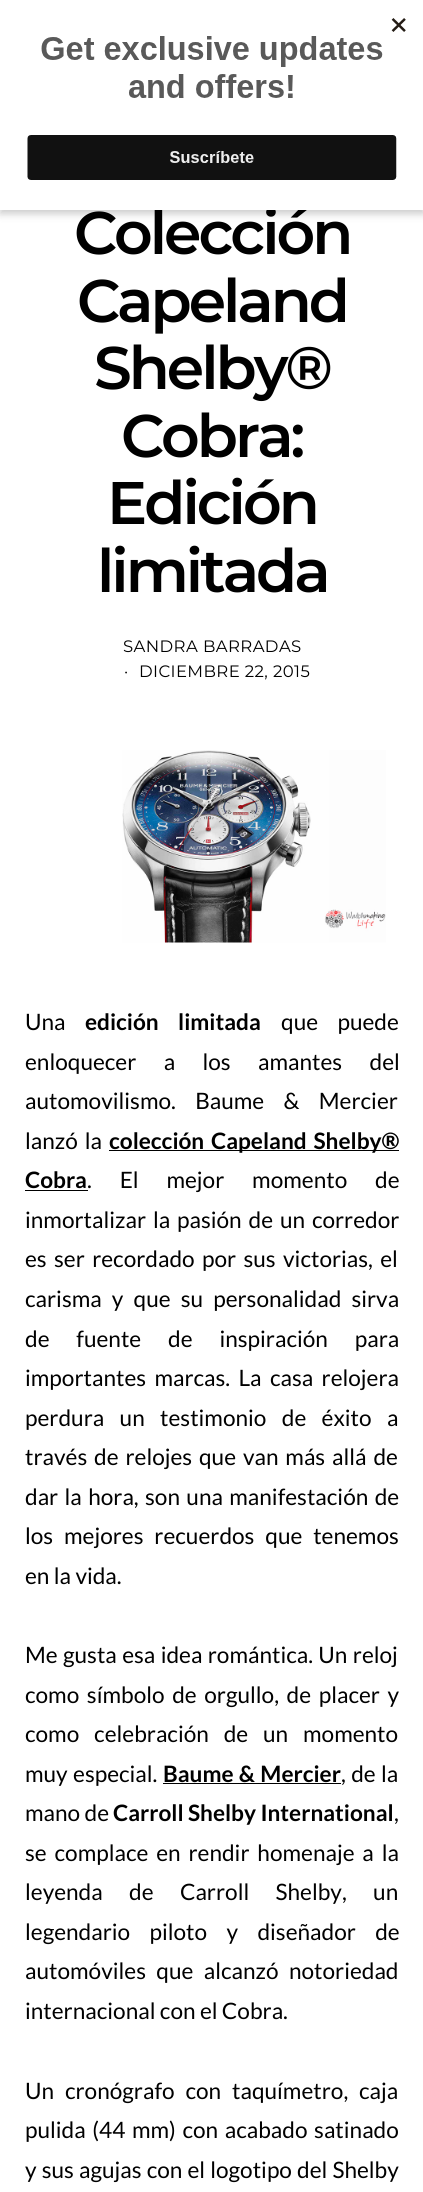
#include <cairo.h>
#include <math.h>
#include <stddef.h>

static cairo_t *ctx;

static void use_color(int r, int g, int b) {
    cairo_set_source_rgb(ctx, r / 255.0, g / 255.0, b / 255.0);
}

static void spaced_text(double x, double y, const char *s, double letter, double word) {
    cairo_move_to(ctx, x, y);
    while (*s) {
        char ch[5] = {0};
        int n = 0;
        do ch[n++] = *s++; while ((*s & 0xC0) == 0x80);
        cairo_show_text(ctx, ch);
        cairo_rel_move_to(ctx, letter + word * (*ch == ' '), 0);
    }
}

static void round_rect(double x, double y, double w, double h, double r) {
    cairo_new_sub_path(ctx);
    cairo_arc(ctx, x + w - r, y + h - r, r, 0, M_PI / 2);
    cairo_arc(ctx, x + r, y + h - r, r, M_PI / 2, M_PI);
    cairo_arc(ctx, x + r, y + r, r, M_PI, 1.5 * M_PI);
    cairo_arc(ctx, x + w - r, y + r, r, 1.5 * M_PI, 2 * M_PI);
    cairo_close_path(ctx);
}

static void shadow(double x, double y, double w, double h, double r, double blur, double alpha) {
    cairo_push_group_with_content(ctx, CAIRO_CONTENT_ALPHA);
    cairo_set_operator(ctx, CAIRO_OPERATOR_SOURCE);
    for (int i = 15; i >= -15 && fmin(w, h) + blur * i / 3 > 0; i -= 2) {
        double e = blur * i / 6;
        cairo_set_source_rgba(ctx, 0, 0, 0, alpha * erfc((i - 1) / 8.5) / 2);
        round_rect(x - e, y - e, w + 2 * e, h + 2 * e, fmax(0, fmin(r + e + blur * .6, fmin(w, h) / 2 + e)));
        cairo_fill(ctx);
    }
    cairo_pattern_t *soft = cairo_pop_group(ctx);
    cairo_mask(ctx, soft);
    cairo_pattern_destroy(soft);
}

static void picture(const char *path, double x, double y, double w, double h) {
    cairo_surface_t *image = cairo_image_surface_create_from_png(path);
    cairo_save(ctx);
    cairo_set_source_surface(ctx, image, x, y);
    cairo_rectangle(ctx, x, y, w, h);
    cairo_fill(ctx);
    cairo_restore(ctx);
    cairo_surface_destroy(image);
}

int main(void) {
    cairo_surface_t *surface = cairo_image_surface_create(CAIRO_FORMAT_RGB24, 423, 2192);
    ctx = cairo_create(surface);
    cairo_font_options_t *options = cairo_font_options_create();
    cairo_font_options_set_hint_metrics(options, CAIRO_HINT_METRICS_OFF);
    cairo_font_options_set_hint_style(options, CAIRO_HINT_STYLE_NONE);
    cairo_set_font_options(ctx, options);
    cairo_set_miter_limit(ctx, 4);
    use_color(255, 255, 255);
    cairo_paint(ctx);
    use_color(0, 0, 0);
    shadow(0, 4, 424, 210, 0, 4, 0.2);
    cairo_select_font_face(ctx, "Montserrat SemiBold", CAIRO_FONT_SLANT_NORMAL, CAIRO_FONT_WEIGHT_NORMAL);
    cairo_set_font_size(ctx, 60);
    use_color(0, 0, 0);
    spaced_text(74, 254, "Colección", -3, 0);
    use_color(255, 255, 255);
    cairo_rectangle(ctx, 0, 0, 423, 210);
    cairo_fill(ctx);
    picture("img1.png", 27, 18, 379, 162);
    use_color(0, 0, 0);
    spaced_text(77, 322, "Capeland", -3, 0);
    spaced_text(94, 389, "Shelby®", -3, 0);
    spaced_text(121, 457, "Cobra:", -3, 0);
    spaced_text(107, 524, "Edición", -3, 0);
    spaced_text(97, 592, "limitada", -3, 0);
    cairo_select_font_face(ctx, "Montserrat", CAIRO_FONT_SLANT_NORMAL, CAIRO_FONT_WEIGHT_NORMAL);
    cairo_set_font_size(ctx, 16.5);
    spaced_text(123, 652, "SANDRA BARRADAS", 0.4, 0);
    spaced_text(124, 677, "·", 0.4, 0);
    spaced_text(139, 677, "DICIEMBRE 22, 2015", 0.4, 0);
    picture("img2.png", 122, 750, 264, 193);
    cairo_select_font_face(ctx, "Lato", CAIRO_FONT_SLANT_NORMAL, CAIRO_FONT_WEIGHT_NORMAL);
    cairo_set_font_size(ctx, 22.6);
    cairo_move_to(ctx, 25, 1030);
    cairo_show_text(ctx, "Una");
    cairo_select_font_face(ctx, "Lato", CAIRO_FONT_SLANT_NORMAL, CAIRO_FONT_WEIGHT_BOLD);
    spaced_text(85, 1030, "edición limitada", 0, 15);
    cairo_select_font_face(ctx, "Lato", CAIRO_FONT_SLANT_NORMAL, CAIRO_FONT_WEIGHT_NORMAL);
    spaced_text(281, 1030, "que puede", 0, 15);
    spaced_text(25, 1070, "enloquecer a los amantes del", 0, 23);
    spaced_text(25, 1109, "automovilismo. Baume & Mercier", 0, 15);
    spaced_text(25, 1149, "lanzó la", 0, 2.5);
    cairo_rectangle(ctx, 109, 1150, 290, 1);
    cairo_fill(ctx);
    cairo_select_font_face(ctx, "Lato", CAIRO_FONT_SLANT_NORMAL, CAIRO_FONT_WEIGHT_BOLD);
    spaced_text(109, 1149, "colección Capeland Shelby®", 0, 2.5);
    cairo_move_to(ctx, 25, 1188);
    cairo_show_text(ctx, "Cobra");
    cairo_rectangle(ctx, 25, 1190, 63, 1);
    cairo_fill(ctx);
    cairo_select_font_face(ctx, "Lato", CAIRO_FONT_SLANT_NORMAL, CAIRO_FONT_WEIGHT_NORMAL);
    spaced_text(87, 1188, ". El mejor momento de", 0, 23.5);
    spaced_text(25, 1228, "inmortalizar la pasión de un corredor", 0, 2.5);
    spaced_text(25, 1267, "es ser recordado por sus victorias, el", 0, 3);
    spaced_text(25, 1307, "carisma y que su personalidad sirva", 0, 5.75);
    spaced_text(25, 1347, "de fuente de inspiración para", 0, 22.5);
    spaced_text(25, 1386, "importantes marcas. La casa relojera", 0, 4);
    spaced_text(25, 1426, "perdura un testimonio de éxito a", 0, 11);
    spaced_text(25, 1465, "través de relojes que van más allá de", 0, 2.5);
    spaced_text(25, 1505, "dar la hora, son una manifestación de", 0, 2);
    spaced_text(25, 1544, "los mejores recuerdos que tenemos", 0, 6.5);
    cairo_move_to(ctx, 25, 1584);
    cairo_show_text(ctx, "en la vida.");
    spaced_text(25, 1663, "Me gusta esa idea romántica. Un reloj", 0, 1);
    spaced_text(25, 1703, "como símbolo de orgullo, de placer y", 0, 3.25);
    spaced_text(25, 1742, "como celebración de un momento", 0, 10.5);
    spaced_text(25, 1782, "muy especial.", 0, 1);
    cairo_select_font_face(ctx, "Lato", CAIRO_FONT_SLANT_NORMAL, CAIRO_FONT_WEIGHT_BOLD);
    spaced_text(163, 1782, "Baume & Mercier", 0, 1);
    cairo_rectangle(ctx, 163, 1783, 178, 1);
    cairo_fill(ctx);
    cairo_select_font_face(ctx, "Lato", CAIRO_FONT_SLANT_NORMAL, CAIRO_FONT_WEIGHT_NORMAL);
    spaced_text(341, 1782, ", de la", 0, 1);
    cairo_move_to(ctx, 25, 1821);
    cairo_show_text(ctx, "mano de");
    cairo_select_font_face(ctx, "Lato", CAIRO_FONT_SLANT_NORMAL, CAIRO_FONT_WEIGHT_BOLD);
    cairo_move_to(ctx, 113, 1821);
    cairo_show_text(ctx, "Carroll Shelby International");
    cairo_select_font_face(ctx, "Lato", CAIRO_FONT_SLANT_NORMAL, CAIRO_FONT_WEIGHT_NORMAL);
    cairo_move_to(ctx, 394, 1821);
    cairo_show_text(ctx, ",");
    spaced_text(25, 1861, "se complace en rendir homenaje a la", 0, 3.5);
    spaced_text(25, 1900, "leyenda de Carroll Shelby, un", 0, 22);
    spaced_text(25, 1940, "legendario piloto y diseñador de", 0, 15);
    spaced_text(25, 1979, "automóviles que alcanzó notoriedad", 0, 6);
    cairo_move_to(ctx, 25, 2019);
    cairo_show_text(ctx, "internacional con el Cobra.");
    spaced_text(25, 2099, "Un cronógrafo con taquímetro, caja", 0, 6.5);
    spaced_text(25, 2138, "pulida (44 mm) con acabado satinado", 0, 2.25);
    spaced_text(25, 2178, "y sus agujas con el logotipo del Shelby", 0, 0.75);
    cairo_surface_write_to_png(surface, "result.png");
    cairo_font_options_destroy(options);
    cairo_destroy(ctx);
    cairo_surface_destroy(surface);
    return 0;
}
